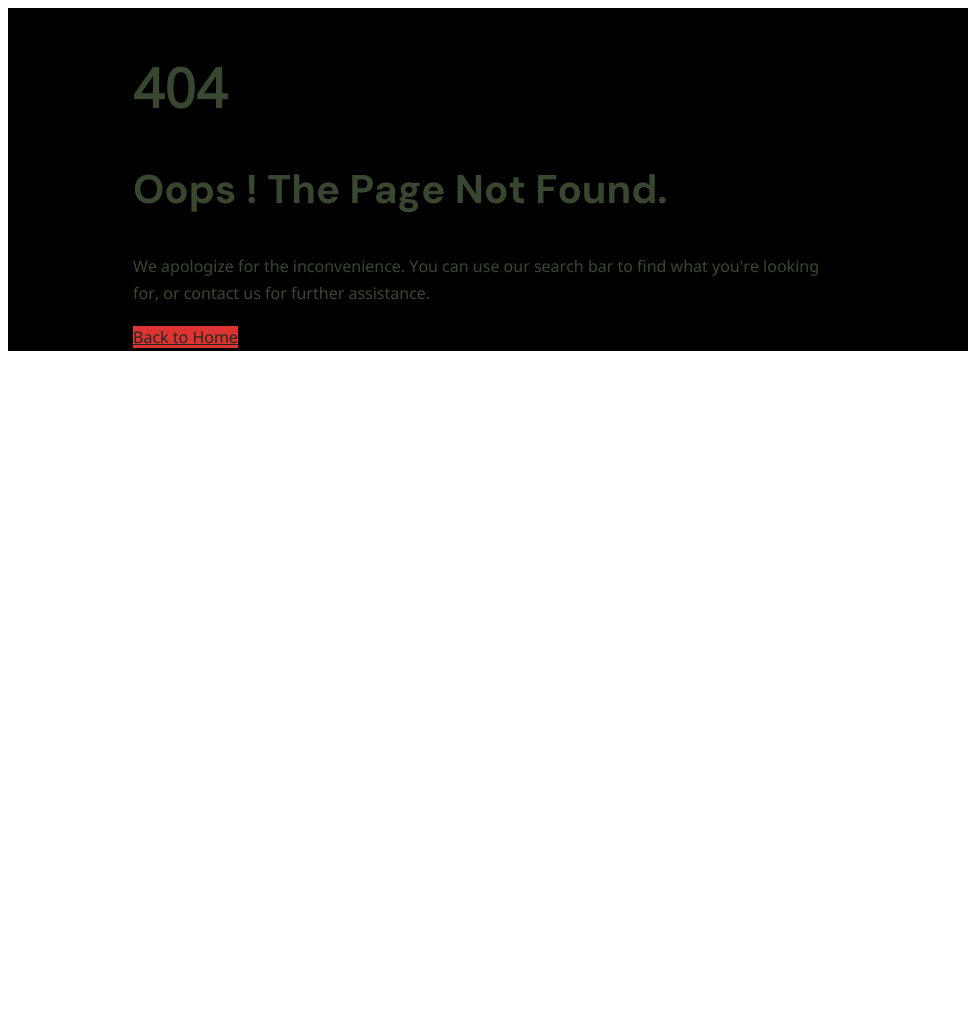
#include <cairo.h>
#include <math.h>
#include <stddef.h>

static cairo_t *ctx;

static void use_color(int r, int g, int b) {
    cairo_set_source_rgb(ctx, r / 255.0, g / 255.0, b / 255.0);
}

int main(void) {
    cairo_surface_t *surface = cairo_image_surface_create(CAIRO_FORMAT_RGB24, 976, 1015);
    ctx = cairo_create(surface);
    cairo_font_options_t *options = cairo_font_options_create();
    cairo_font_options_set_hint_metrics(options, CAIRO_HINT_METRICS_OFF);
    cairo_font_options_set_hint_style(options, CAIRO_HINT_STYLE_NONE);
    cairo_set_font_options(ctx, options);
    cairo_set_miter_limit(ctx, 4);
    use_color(255, 255, 255);
    cairo_paint(ctx);
    use_color(0, 0, 0);
    cairo_rectangle(ctx, 8, 8, 960, 343);
    cairo_fill(ctx);
    cairo_select_font_face(ctx, "Noto Sans", CAIRO_FONT_SLANT_NORMAL, CAIRO_FONT_WEIGHT_BOLD);
    cairo_set_font_size(ctx, 55);
    use_color(57, 70, 48);
    cairo_move_to(ctx, 133, 108);
    cairo_show_text(ctx, "404");
    cairo_select_font_face(ctx, "DM Sans", CAIRO_FONT_SLANT_NORMAL, CAIRO_FONT_WEIGHT_BOLD);
    cairo_set_font_size(ctx, 40);
    cairo_move_to(ctx, 133, 203);
    cairo_show_text(ctx, "Oops ! The Page Not Found.");
    cairo_select_font_face(ctx, "Noto Sans", CAIRO_FONT_SLANT_NORMAL, CAIRO_FONT_WEIGHT_NORMAL);
    cairo_set_font_size(ctx, 16);
    cairo_move_to(ctx, 133, 272);
    cairo_show_text(ctx, "We apologize for the inconvenience. You can use our search bar to find what you're looking");
    cairo_move_to(ctx, 133, 299);
    cairo_show_text(ctx, "for, or contact us for further assistance.");
    use_color(221, 51, 51);
    cairo_rectangle(ctx, 133, 326, 105, 22);
    cairo_fill(ctx);
    use_color(34, 40, 30);
    cairo_move_to(ctx, 133, 343);
    cairo_show_text(ctx, "Back to Home");
    cairo_rectangle(ctx, 133, 344, 105, 1);
    cairo_fill(ctx);
    cairo_surface_write_to_png(surface, "result.png");
    cairo_font_options_destroy(options);
    cairo_destroy(ctx);
    cairo_surface_destroy(surface);
    return 0;
}
